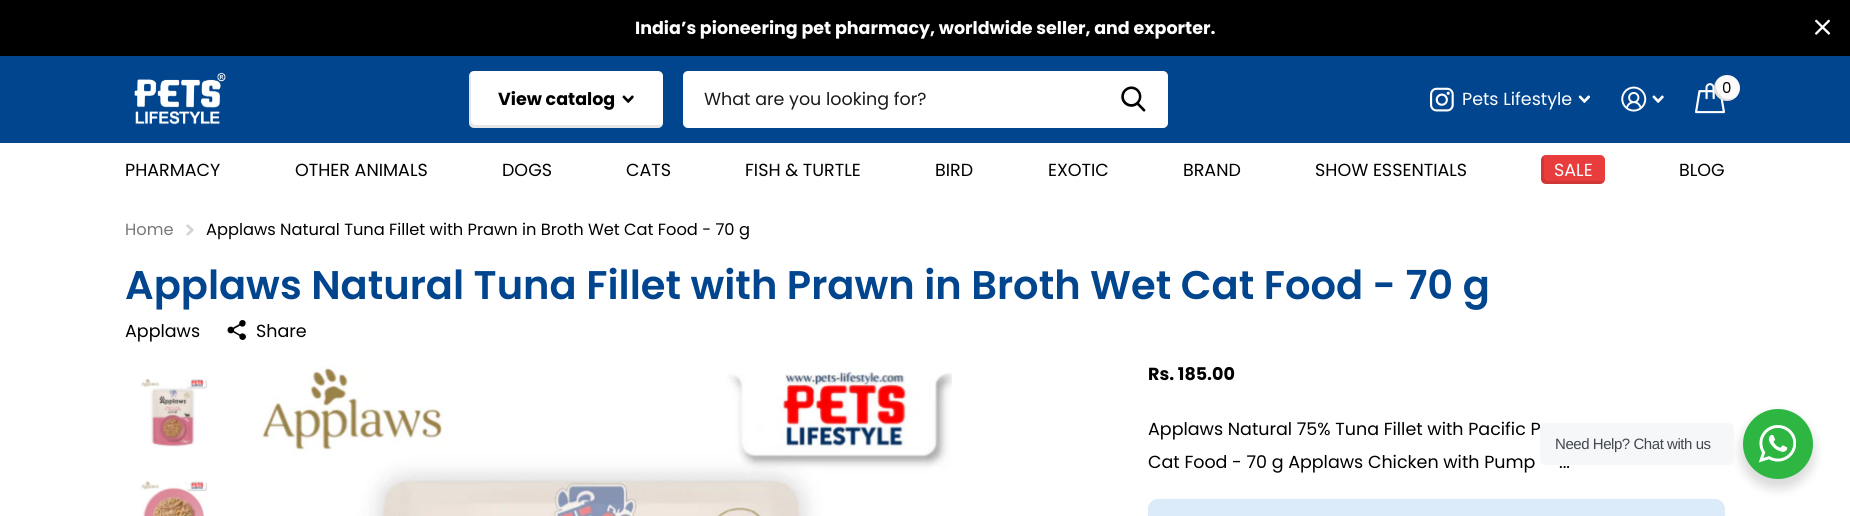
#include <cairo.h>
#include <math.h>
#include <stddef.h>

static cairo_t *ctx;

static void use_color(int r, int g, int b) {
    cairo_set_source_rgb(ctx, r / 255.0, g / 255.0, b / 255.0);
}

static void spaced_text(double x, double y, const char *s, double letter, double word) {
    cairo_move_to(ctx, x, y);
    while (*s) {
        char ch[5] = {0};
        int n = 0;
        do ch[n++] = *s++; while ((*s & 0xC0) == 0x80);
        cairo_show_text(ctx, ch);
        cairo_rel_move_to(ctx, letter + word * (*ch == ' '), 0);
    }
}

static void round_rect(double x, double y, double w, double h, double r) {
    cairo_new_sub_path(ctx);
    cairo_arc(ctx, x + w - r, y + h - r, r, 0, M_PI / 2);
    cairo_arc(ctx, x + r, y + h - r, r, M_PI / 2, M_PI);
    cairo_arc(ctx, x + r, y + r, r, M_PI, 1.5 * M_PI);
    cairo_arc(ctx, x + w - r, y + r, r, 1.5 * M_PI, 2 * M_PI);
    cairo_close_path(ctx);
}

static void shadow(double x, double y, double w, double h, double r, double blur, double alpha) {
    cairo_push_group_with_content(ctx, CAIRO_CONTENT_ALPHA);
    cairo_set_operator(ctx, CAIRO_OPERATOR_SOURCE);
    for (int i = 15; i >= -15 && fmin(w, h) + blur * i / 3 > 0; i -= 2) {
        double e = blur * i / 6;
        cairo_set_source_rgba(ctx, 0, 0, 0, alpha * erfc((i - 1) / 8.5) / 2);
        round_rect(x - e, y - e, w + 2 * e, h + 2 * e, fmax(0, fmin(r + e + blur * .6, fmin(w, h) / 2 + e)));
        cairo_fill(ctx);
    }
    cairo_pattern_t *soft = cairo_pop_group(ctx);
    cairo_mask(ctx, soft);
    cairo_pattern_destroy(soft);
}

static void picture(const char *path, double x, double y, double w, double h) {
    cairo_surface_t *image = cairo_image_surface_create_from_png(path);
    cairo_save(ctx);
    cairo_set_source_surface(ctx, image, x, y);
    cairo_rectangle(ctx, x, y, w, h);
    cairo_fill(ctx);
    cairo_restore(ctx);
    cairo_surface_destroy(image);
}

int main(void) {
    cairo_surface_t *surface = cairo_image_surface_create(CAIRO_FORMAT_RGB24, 1850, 516);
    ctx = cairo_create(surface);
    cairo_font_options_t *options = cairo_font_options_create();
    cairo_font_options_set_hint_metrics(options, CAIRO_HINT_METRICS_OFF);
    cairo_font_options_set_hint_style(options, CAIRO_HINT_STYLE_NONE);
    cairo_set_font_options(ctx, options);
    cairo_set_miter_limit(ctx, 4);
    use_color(0, 0, 0);
    cairo_paint(ctx);
    cairo_select_font_face(ctx, "Poppins", CAIRO_FONT_SLANT_NORMAL, CAIRO_FONT_WEIGHT_BOLD);
    cairo_set_font_size(ctx, 17.5);
    use_color(255, 255, 255);
    cairo_move_to(ctx, 635, 34);
    cairo_show_text(ctx, "India’s pioneering pet pharmacy, worldwide seller, and exporter.");
    picture("img1.png", 1815, 19, 16, 16);
    cairo_rectangle(ctx, 0, 143, 1850, 373);
    cairo_fill(ctx);
    use_color(1, 69, 142);
    cairo_rectangle(ctx, 0, 56, 1850, 87);
    cairo_fill(ctx);
    picture("img2.png", 134, 72, 92, 53);
    use_color(255, 255, 255);
    round_rect(469, 71, 194, 57, 5);
    cairo_fill(ctx);
    cairo_set_source_rgba(ctx, 0, 0, 0, 0.1);
    cairo_new_path(ctx);
    cairo_move_to(ctx, 471, 72);
    cairo_curve_to(ctx, 470, 73, 469, 74, 469, 76);
    cairo_line_to(ctx, 469, 123);
    cairo_curve_to(ctx, 469, 126, 471, 128, 474, 128);
    cairo_line_to(ctx, 658, 128);
    cairo_curve_to(ctx, 660, 128, 662, 126, 663, 124);
    cairo_line_to(ctx, 660, 125);
    cairo_line_to(ctx, 476, 125);
    cairo_curve_to(ctx, 473, 125, 471, 123, 471, 120);
    cairo_line_to(ctx, 471, 74);
    cairo_close_path(ctx);
    cairo_fill(ctx);
    use_color(0, 0, 0);
    cairo_move_to(ctx, 498, 105);
    cairo_show_text(ctx, "View catalog");
    picture("img3.png", 622, 95, 12, 8);
    use_color(255, 255, 255);
    round_rect(683, 71, 485, 57, 5);
    cairo_fill(ctx);
    cairo_select_font_face(ctx, "Poppins", CAIRO_FONT_SLANT_NORMAL, CAIRO_FONT_WEIGHT_NORMAL);
    use_color(26, 26, 26);
    cairo_move_to(ctx, 704, 105);
    cairo_show_text(ctx, "What are you looking for?");
    picture("img4.png", 1121, 86, 25, 26);
    picture("img5.png", 1430, 87, 24, 25);
    use_color(255, 255, 255);
    cairo_move_to(ctx, 1462, 105);
    cairo_show_text(ctx, "Pets Lifestyle");
    picture("img6.png", 1578, 95, 12, 8);
    picture("img7.png", 1621, 86, 26, 26);
    picture("img8.png", 1652, 95, 12, 8);
    picture("img9.png", 1695, 83, 30, 31);
    use_color(252, 250, 250);
    cairo_arc(ctx, 1727, 88, 13, 0, 2 * M_PI);
    cairo_fill(ctx);
    cairo_set_source_rgba(ctx, 0, 0, 0, 0.1);
    cairo_new_path(ctx);
    cairo_move_to(ctx, 1736, 97);
    cairo_curve_to(ctx, 1724.5, 104, 1711.5, 91.5, 1717.5, 79);
    cairo_curve_to(ctx, 1706, 91, 1724, 109, 1736, 97);
    cairo_close_path(ctx);
    cairo_fill(ctx);
    cairo_set_font_size(ctx, 15);
    use_color(0, 0, 0);
    cairo_move_to(ctx, 1722, 93);
    cairo_show_text(ctx, "0");
    cairo_set_font_size(ctx, 17.5);
    cairo_move_to(ctx, 125, 176);
    cairo_show_text(ctx, "PHARMACY");
    cairo_move_to(ctx, 295, 176);
    cairo_show_text(ctx, "OTHER ANIMALS");
    cairo_move_to(ctx, 502, 176);
    cairo_show_text(ctx, "DOGS");
    cairo_move_to(ctx, 626, 176);
    cairo_show_text(ctx, "CATS");
    cairo_move_to(ctx, 745, 176);
    cairo_show_text(ctx, "FISH & TURTLE");
    cairo_move_to(ctx, 935, 176);
    cairo_show_text(ctx, "BIRD");
    cairo_move_to(ctx, 1048, 176);
    cairo_show_text(ctx, "EXOTIC");
    cairo_move_to(ctx, 1183, 176);
    cairo_show_text(ctx, "BRAND");
    cairo_move_to(ctx, 1315, 176);
    cairo_show_text(ctx, "SHOW ESSENTIALS");
    use_color(233, 61, 61);
    round_rect(1541, 155, 64, 29, 5);
    cairo_fill(ctx);
    cairo_set_source_rgba(ctx, 0, 0, 0, 0.1);
    cairo_new_path(ctx);
    cairo_move_to(ctx, 1545, 155);
    cairo_curve_to(ctx, 1543, 156, 1541, 158, 1541, 160);
    cairo_line_to(ctx, 1541, 179);
    cairo_curve_to(ctx, 1541, 182, 1543, 184, 1546, 184);
    cairo_line_to(ctx, 1600, 184);
    cairo_curve_to(ctx, 1602, 184, 1604, 182, 1605, 180);
    cairo_line_to(ctx, 1602, 181);
    cairo_line_to(ctx, 1549, 181);
    cairo_curve_to(ctx, 1546, 181, 1544, 179, 1544, 176);
    cairo_line_to(ctx, 1544, 158);
    cairo_close_path(ctx);
    cairo_fill(ctx);
    use_color(255, 255, 255);
    cairo_move_to(ctx, 1554, 176);
    cairo_show_text(ctx, "SALE");
    use_color(0, 0, 0);
    cairo_move_to(ctx, 1679, 176);
    cairo_show_text(ctx, "BLOG");
    cairo_set_font_size(ctx, 16.25);
    use_color(120, 120, 120);
    cairo_move_to(ctx, 125, 235);
    cairo_show_text(ctx, "Home");
    picture("img10.png", 186, 224, 8, 12);
    use_color(0, 0, 0);
    cairo_move_to(ctx, 206, 235);
    cairo_show_text(ctx, "Applaws Natural Tuna Fillet with Prawn in Broth Wet Cat Food - 70 g");
    cairo_select_font_face(ctx, "Poppins SemiBold", CAIRO_FONT_SLANT_NORMAL, CAIRO_FONT_WEIGHT_NORMAL);
    cairo_set_font_size(ctx, 40);
    use_color(1, 69, 142);
    cairo_move_to(ctx, 125, 299);
    cairo_show_text(ctx, "Applaws Natural Tuna Fillet with Prawn in Broth Wet Cat Food - 70 g");
    cairo_select_font_face(ctx, "Poppins", CAIRO_FONT_SLANT_NORMAL, CAIRO_FONT_WEIGHT_NORMAL);
    cairo_set_font_size(ctx, 17.5);
    use_color(0, 0, 0);
    cairo_move_to(ctx, 125, 337);
    cairo_show_text(ctx, "Applaws");
    picture("img11.png", 227, 320, 19, 20);
    cairo_move_to(ctx, 256, 337);
    cairo_show_text(ctx, "Share");
    picture("img12.png", 140, 379, 68, 68);
    picture("img13.png", 140, 480, 68, 36);
    picture("img14.png", 262, 366, 690, 150);
    cairo_select_font_face(ctx, "Poppins", CAIRO_FONT_SLANT_NORMAL, CAIRO_FONT_WEIGHT_BOLD);
    cairo_move_to(ctx, 1148, 380);
    cairo_show_text(ctx, "Rs. 185.00");
    cairo_select_font_face(ctx, "Poppins", CAIRO_FONT_SLANT_NORMAL, CAIRO_FONT_WEIGHT_NORMAL);
    cairo_move_to(ctx, 1148, 435);
    cairo_show_text(ctx, "Applaws Natural 75% Tuna Fillet with Pacific P");
    cairo_move_to(ctx, 1148, 468);
    cairo_show_text(ctx, "Cat Food - 70 g Applaws Chicken with Pump");
    cairo_move_to(ctx, 1559, 468);
    cairo_show_text(ctx, "...");
    use_color(219, 235, 249);
    round_rect(1148, 499, 577, 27, 10);
    cairo_fill(ctx);
    use_color(0, 0, 0);
    shadow(1740, 414, 75, 75, 37.5, 5, 0.14);
    use_color(245, 247, 249);
    round_rect(1540, 423, 194, 42, 5);
    cairo_fill(ctx);
    cairo_select_font_face(ctx, "Liberation Sans", CAIRO_FONT_SLANT_NORMAL, CAIRO_FONT_WEIGHT_NORMAL);
    cairo_set_font_size(ctx, 15);
    use_color(67, 71, 78);
    spaced_text(1555, 449, "Need Help? Chat with us", -0.45, 0);
    use_color(45, 183, 66);
    cairo_new_path(ctx);
    cairo_arc(ctx, 1778, 444, 35, 0, 2 * M_PI);
    cairo_fill(ctx);
    picture("img15.png", 1759, 425, 37, 38);
    cairo_surface_write_to_png(surface, "result.png");
    cairo_font_options_destroy(options);
    cairo_destroy(ctx);
    cairo_surface_destroy(surface);
    return 0;
}
